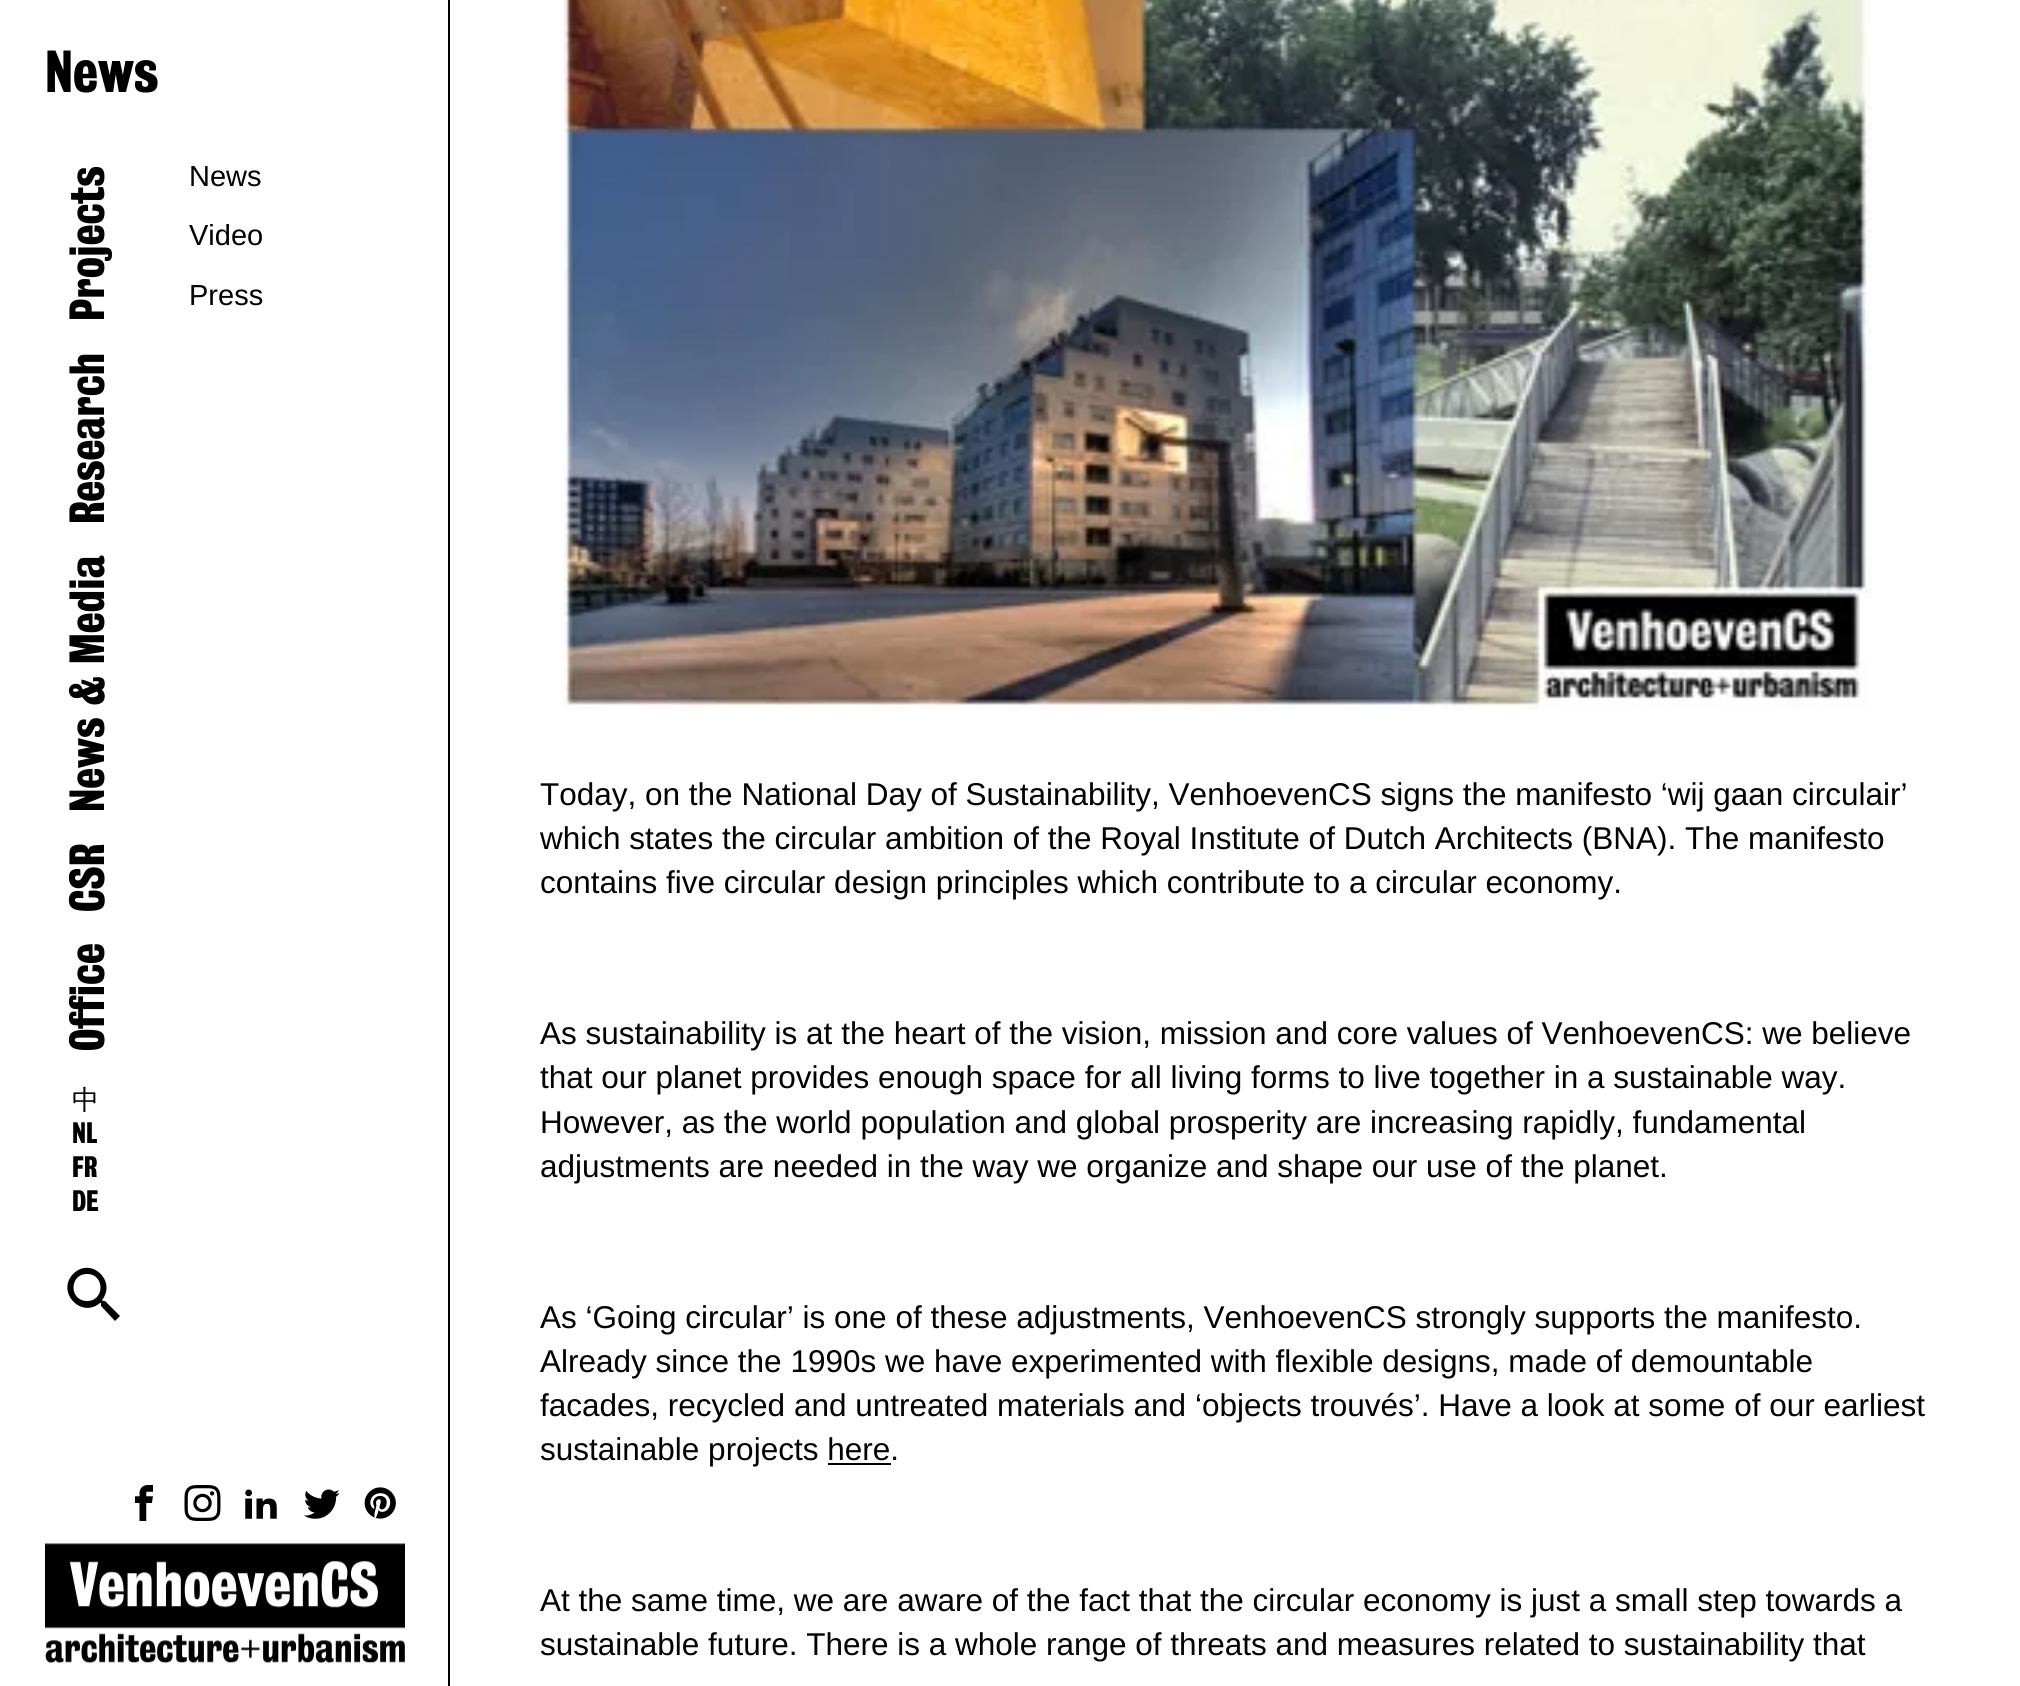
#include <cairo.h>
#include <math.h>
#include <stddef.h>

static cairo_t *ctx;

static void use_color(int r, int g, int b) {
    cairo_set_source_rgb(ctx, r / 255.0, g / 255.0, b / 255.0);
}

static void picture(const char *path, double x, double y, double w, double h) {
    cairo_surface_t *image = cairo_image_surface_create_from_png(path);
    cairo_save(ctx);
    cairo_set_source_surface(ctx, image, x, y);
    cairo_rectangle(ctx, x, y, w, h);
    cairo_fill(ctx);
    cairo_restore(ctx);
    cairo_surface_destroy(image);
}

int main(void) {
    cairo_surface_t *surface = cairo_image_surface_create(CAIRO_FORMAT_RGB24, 2020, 1686);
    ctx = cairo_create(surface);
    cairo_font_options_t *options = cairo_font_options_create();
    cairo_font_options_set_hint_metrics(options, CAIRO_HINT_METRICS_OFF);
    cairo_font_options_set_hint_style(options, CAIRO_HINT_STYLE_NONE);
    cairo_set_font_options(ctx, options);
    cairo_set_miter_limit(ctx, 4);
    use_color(255, 255, 255);
    cairo_paint(ctx);
    use_color(0, 0, 0);
    cairo_rectangle(ctx, 448, 0, 2, 1686);
    cairo_fill(ctx);
    cairo_select_font_face(ctx, "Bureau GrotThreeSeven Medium", CAIRO_FONT_SLANT_NORMAL, CAIRO_FONT_WEIGHT_NORMAL);
    cairo_set_font_size(ctx, 54);
    cairo_move_to(ctx, 45, 92);
    cairo_show_text(ctx, "News");
    cairo_set_font_size(ctx, 45);
    cairo_save(ctx);
    cairo_translate(ctx, 104, 321);
    cairo_rotate(ctx, -90 * M_PI / 180);
    cairo_move_to(ctx, 0, 0);
    cairo_show_text(ctx, "Projects");
    cairo_restore(ctx);
    cairo_save(ctx);
    cairo_translate(ctx, 104, 524);
    cairo_rotate(ctx, -90 * M_PI / 180);
    cairo_move_to(ctx, 0, 0);
    cairo_show_text(ctx, "Research");
    cairo_restore(ctx);
    cairo_save(ctx);
    cairo_translate(ctx, 104, 812);
    cairo_rotate(ctx, -90 * M_PI / 180);
    cairo_move_to(ctx, 0, 0);
    cairo_show_text(ctx, "News & Media");
    cairo_restore(ctx);
    cairo_save(ctx);
    cairo_translate(ctx, 104, 912);
    cairo_rotate(ctx, -90 * M_PI / 180);
    cairo_move_to(ctx, 0, 0);
    cairo_show_text(ctx, "CSR");
    cairo_restore(ctx);
    cairo_save(ctx);
    cairo_translate(ctx, 104, 1051);
    cairo_rotate(ctx, -90 * M_PI / 180);
    cairo_move_to(ctx, 0, 0);
    cairo_show_text(ctx, "Office");
    cairo_restore(ctx);
    cairo_select_font_face(ctx, "WenQuanYi Zen Hei Medium", CAIRO_FONT_SLANT_NORMAL, CAIRO_FONT_WEIGHT_NORMAL);
    cairo_set_font_size(ctx, 27);
    cairo_move_to(ctx, 72, 1109);
    cairo_show_text(ctx, "中");
    cairo_select_font_face(ctx, "Bureau GrotThreeSeven Medium", CAIRO_FONT_SLANT_NORMAL, CAIRO_FONT_WEIGHT_NORMAL);
    cairo_move_to(ctx, 72, 1143);
    cairo_show_text(ctx, "NL");
    cairo_move_to(ctx, 72, 1177);
    cairo_show_text(ctx, "FR");
    cairo_move_to(ctx, 72, 1211);
    cairo_show_text(ctx, "DE");
    cairo_new_path(ctx);
    cairo_move_to(ctx, 87, 1301);
    cairo_curve_to(ctx, 105, 1301, 105, 1274, 87, 1274);
    cairo_curve_to(ctx, 69, 1274, 69, 1301, 87, 1301);
    cairo_close_path(ctx);
    cairo_move_to(ctx, 105, 1301);
    cairo_line_to(ctx, 120, 1316);
    cairo_line_to(ctx, 115, 1321);
    cairo_line_to(ctx, 101, 1306);
    cairo_line_to(ctx, 101, 1303);
    cairo_line_to(ctx, 100, 1303);
    cairo_curve_to(ctx, 81, 1319, 56, 1292, 73, 1274);
    cairo_curve_to(ctx, 91, 1256, 117, 1281, 102, 1300);
    cairo_line_to(ctx, 103, 1301);
    cairo_close_path(ctx);
    cairo_fill(ctx);
    cairo_select_font_face(ctx, "Liberation Sans", CAIRO_FONT_SLANT_NORMAL, CAIRO_FONT_WEIGHT_NORMAL);
    cairo_set_font_size(ctx, 29);
    cairo_move_to(ctx, 189, 186);
    cairo_show_text(ctx, "News");
    cairo_move_to(ctx, 189, 245);
    cairo_show_text(ctx, "Video");
    cairo_move_to(ctx, 189, 305);
    cairo_show_text(ctx, "Press");
    picture("img1.png", 135, 1485, 18, 36);
    picture("img2.png", 184, 1485, 37, 36);
    picture("img3.png", 245, 1489, 32, 30);
    picture("img4.png", 304, 1489, 36, 30);
    picture("img5.png", 364, 1487, 32, 32);
    picture("img6.png", 45, 1543, 360, 121);
    picture("img7.png", 563, 0, 1309, 710);
    cairo_set_font_size(ctx, 31.5);
    cairo_move_to(ctx, 540, 805);
    cairo_show_text(ctx, "Today, on the National Day of Sustainability, VenhoevenCS signs the manifesto ‘wij gaan circulair’");
    cairo_move_to(ctx, 540, 849);
    cairo_show_text(ctx, "which states the circular ambition of the Royal Institute of Dutch Architects (BNA). The manifesto");
    cairo_move_to(ctx, 540, 893);
    cairo_show_text(ctx, "contains five circular design principles which contribute to a circular economy.");
    cairo_move_to(ctx, 540, 1044);
    cairo_show_text(ctx, "As sustainability is at the heart of the vision, mission and core values of VenhoevenCS: we believe");
    cairo_move_to(ctx, 540, 1088);
    cairo_show_text(ctx, "that our planet provides enough space for all living forms to live together in a sustainable way.");
    cairo_move_to(ctx, 540, 1133);
    cairo_show_text(ctx, "However, as the world population and global prosperity are increasing rapidly, fundamental");
    cairo_move_to(ctx, 540, 1177);
    cairo_show_text(ctx, "adjustments are needed in the way we organize and shape our use of the planet.");
    cairo_move_to(ctx, 540, 1328);
    cairo_show_text(ctx, "As ‘Going circular’ is one of these adjustments, VenhoevenCS strongly supports the manifesto.");
    cairo_move_to(ctx, 540, 1372);
    cairo_show_text(ctx, "Already since the 1990s we have experimented with flexible designs, made of demountable");
    cairo_move_to(ctx, 540, 1416);
    cairo_show_text(ctx, "facades, recycled and untreated materials and ‘objects trouvés’. Have a look at some of our earliest");
    cairo_move_to(ctx, 540, 1460);
    cairo_show_text(ctx, "sustainable projects here.");
    cairo_rectangle(ctx, 828, 1463, 63, 2);
    cairo_fill(ctx);
    cairo_move_to(ctx, 540, 1611);
    cairo_show_text(ctx, "At the same time, we are aware of the fact that the circular economy is just a small step towards a");
    cairo_move_to(ctx, 540, 1655);
    cairo_show_text(ctx, "sustainable future. There is a whole range of threats and measures related to sustainability that");
    cairo_surface_write_to_png(surface, "result.png");
    cairo_font_options_destroy(options);
    cairo_destroy(ctx);
    cairo_surface_destroy(surface);
    return 0;
}
